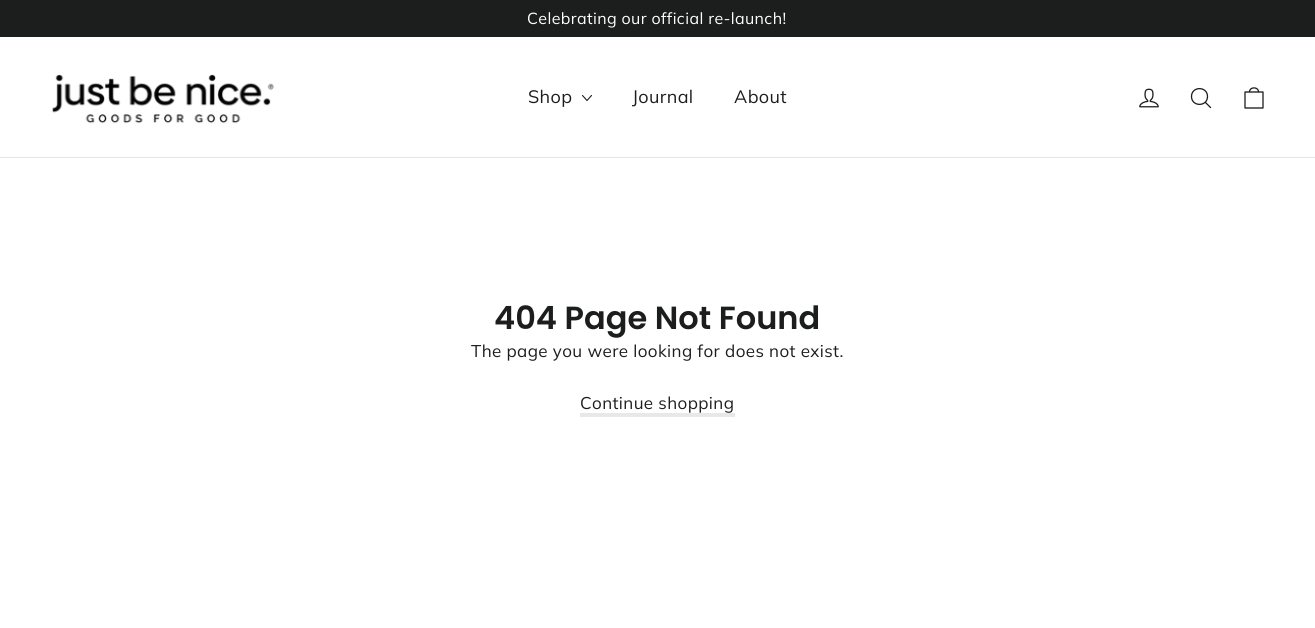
#include <cairo.h>
#include <math.h>
#include <stddef.h>

static cairo_t *ctx;

static void use_color(int r, int g, int b) {
    cairo_set_source_rgb(ctx, r / 255.0, g / 255.0, b / 255.0);
}

static void spaced_text(double x, double y, const char *s, double letter, double word) {
    cairo_move_to(ctx, x, y);
    while (*s) {
        char ch[5] = {0};
        int n = 0;
        do ch[n++] = *s++; while ((*s & 0xC0) == 0x80);
        cairo_show_text(ctx, ch);
        cairo_rel_move_to(ctx, letter + word * (*ch == ' '), 0);
    }
}

static void picture(const char *path, double x, double y, double w, double h) {
    cairo_surface_t *image = cairo_image_surface_create_from_png(path);
    cairo_save(ctx);
    cairo_set_source_surface(ctx, image, x, y);
    cairo_rectangle(ctx, x, y, w, h);
    cairo_fill(ctx);
    cairo_restore(ctx);
    cairo_surface_destroy(image);
}

int main(void) {
    cairo_surface_t *surface = cairo_image_surface_create(CAIRO_FORMAT_RGB24, 1315, 628);
    ctx = cairo_create(surface);
    cairo_font_options_t *options = cairo_font_options_create();
    cairo_font_options_set_hint_metrics(options, CAIRO_HINT_METRICS_OFF);
    cairo_font_options_set_hint_style(options, CAIRO_HINT_STYLE_NONE);
    cairo_set_font_options(ctx, options);
    cairo_set_miter_limit(ctx, 4);
    use_color(255, 255, 255);
    cairo_paint(ctx);
    use_color(28, 29, 29);
    cairo_rectangle(ctx, 0, 0, 1315, 37);
    cairo_fill(ctx);
    cairo_select_font_face(ctx, "Muli", CAIRO_FONT_SLANT_NORMAL, CAIRO_FONT_WEIGHT_NORMAL);
    cairo_set_font_size(ctx, 16);
    use_color(255, 255, 255);
    spaced_text(527, 24, "Celebrating our official re-launch!", 0.4, 0);
    use_color(232, 232, 225);
    cairo_rectangle(ctx, 0, 157, 1315, 1);
    cairo_fill(ctx);
    picture("img1.png", 52, 74, 222, 50);
    cairo_set_font_size(ctx, 18);
    use_color(28, 29, 29);
    spaced_text(528, 103, "Shop", 0.4, 0);
    cairo_new_path(ctx);
    cairo_move_to(ctx, 582.5, 95.5);
    cairo_line_to(ctx, 587, 100.5);
    cairo_line_to(ctx, 591.5, 95.5);
    cairo_set_line_width(ctx, 1.1);
    cairo_set_line_cap(ctx, CAIRO_LINE_CAP_ROUND);
    cairo_set_line_join(ctx, CAIRO_LINE_JOIN_ROUND);
    cairo_stroke(ctx);
    spaced_text(632, 103, "Journal", 0.4, 0);
    spaced_text(734, 103, "About", 0.4, 0);
    picture("img2.png", 1139, 88, 20, 20);
    cairo_new_path(ctx);
    cairo_move_to(ctx, 1207.5, 96.5);
    cairo_curve_to(ctx, 1207.5, 107, 1191.5, 107, 1191.5, 96.5);
    cairo_curve_to(ctx, 1191.5, 86, 1207.5, 86, 1207.5, 96.5);
    cairo_close_path(ctx);
    cairo_move_to(ctx, 1210.5, 107.5);
    cairo_line_to(ctx, 1205.5, 102.5);
    cairo_set_line_width(ctx, 1.3);
    cairo_stroke(ctx);
    cairo_new_path(ctx);
    cairo_move_to(ctx, 1245, 92);
    cairo_line_to(ctx, 1263, 92);
    cairo_line_to(ctx, 1263, 108);
    cairo_line_to(ctx, 1245, 108);
    cairo_close_path(ctx);
    cairo_move_to(ctx, 1249.5, 92);
    cairo_curve_to(ctx, 1249.5, 86.5, 1258.5, 86.5, 1258.5, 92);
    cairo_stroke(ctx);
    cairo_select_font_face(ctx, "Poppins SemiBold", CAIRO_FONT_SLANT_NORMAL, CAIRO_FONT_WEIGHT_NORMAL);
    cairo_set_font_size(ctx, 32);
    cairo_move_to(ctx, 494, 329);
    cairo_show_text(ctx, "404 Page Not Found");
    cairo_select_font_face(ctx, "Muli", CAIRO_FONT_SLANT_NORMAL, CAIRO_FONT_WEIGHT_NORMAL);
    cairo_set_font_size(ctx, 17);
    spaced_text(471, 357, "The page you were looking for does not exist.", 0.4, 0);
    spaced_text(580, 409, "Continue shopping", 0.4, 0);
    use_color(232, 232, 232);
    cairo_rectangle(ctx, 580, 413, 155, 4);
    cairo_fill(ctx);
    cairo_surface_write_to_png(surface, "result.png");
    cairo_font_options_destroy(options);
    cairo_destroy(ctx);
    cairo_surface_destroy(surface);
    return 0;
}
